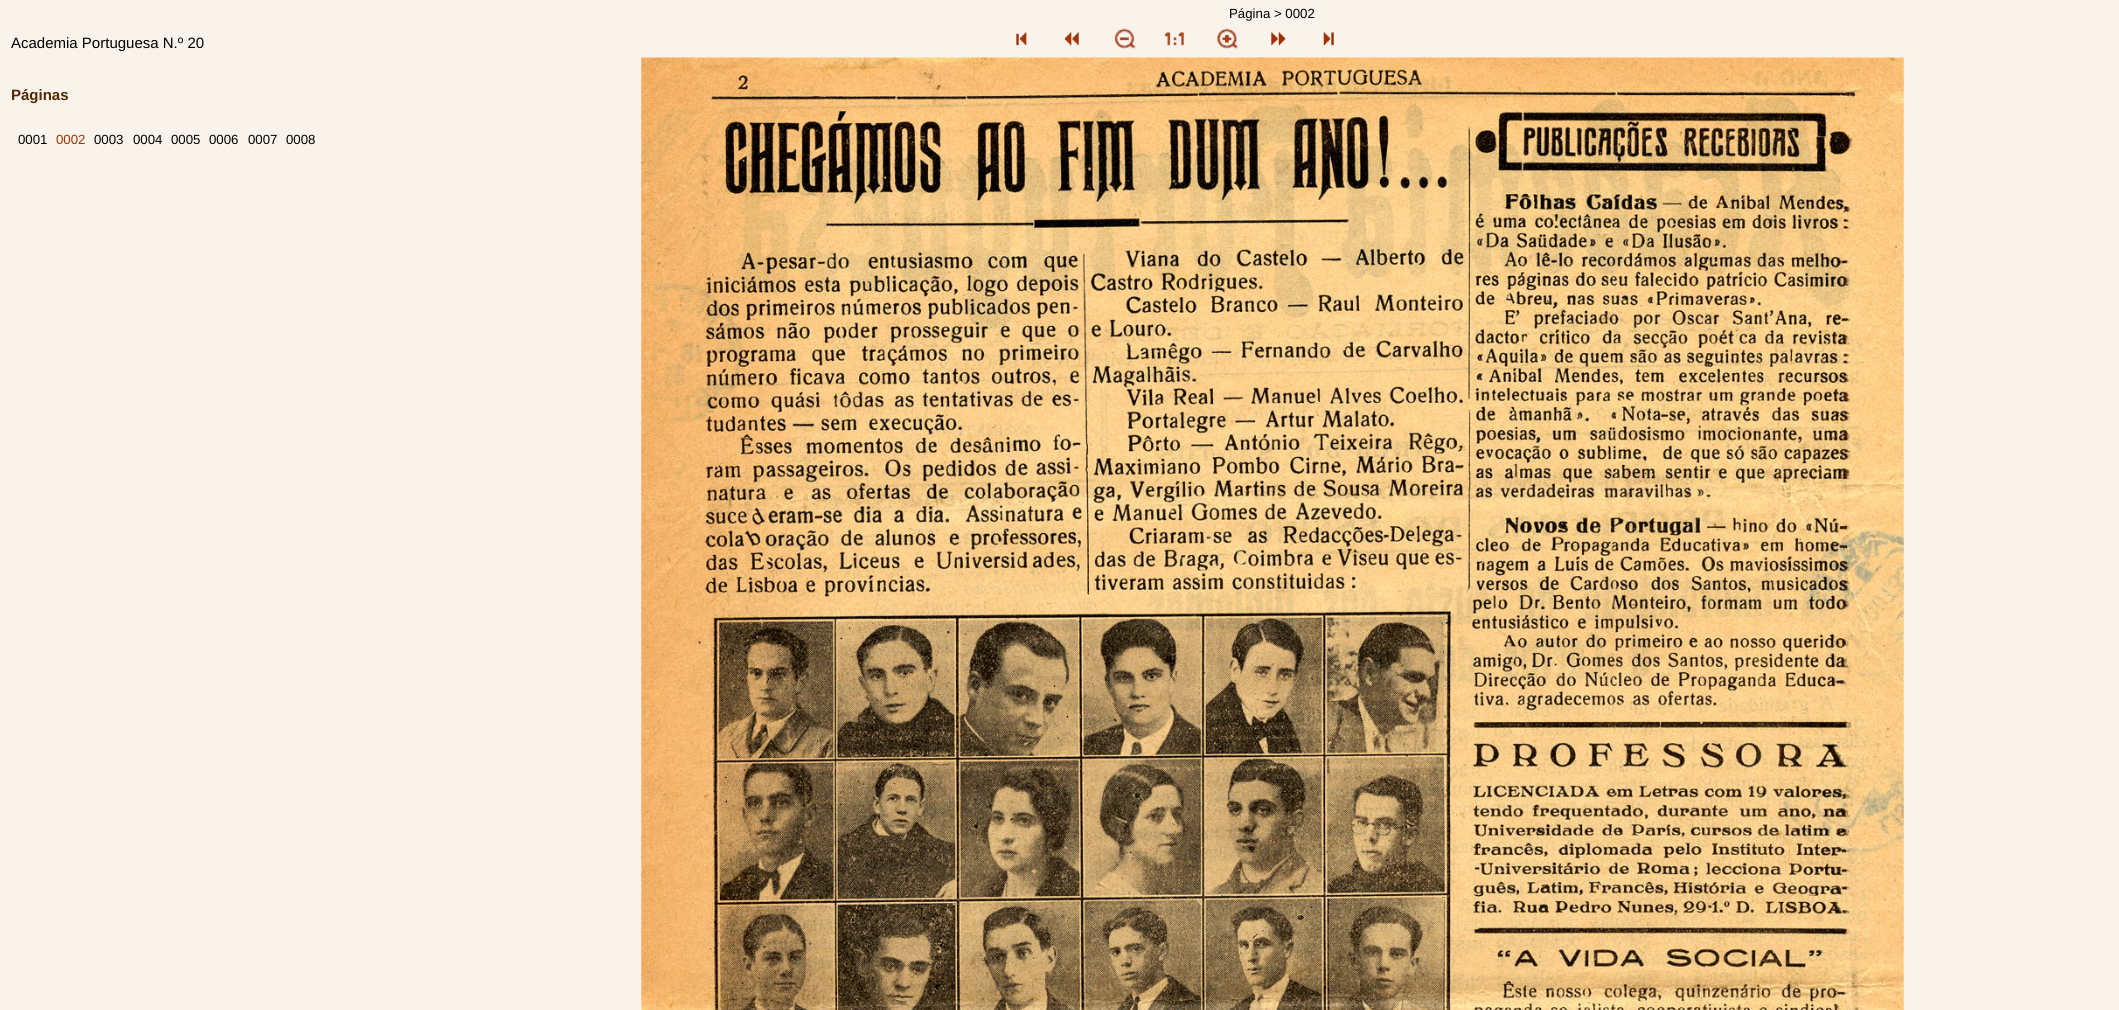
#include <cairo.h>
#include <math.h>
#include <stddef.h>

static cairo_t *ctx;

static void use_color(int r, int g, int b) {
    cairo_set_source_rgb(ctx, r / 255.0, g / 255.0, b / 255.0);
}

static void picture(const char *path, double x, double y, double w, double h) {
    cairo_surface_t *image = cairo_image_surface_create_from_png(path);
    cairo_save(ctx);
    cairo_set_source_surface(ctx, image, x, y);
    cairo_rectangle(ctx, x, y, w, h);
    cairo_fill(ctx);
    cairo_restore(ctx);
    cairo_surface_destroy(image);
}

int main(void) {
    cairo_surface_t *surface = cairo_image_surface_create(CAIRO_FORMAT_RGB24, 2119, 1010);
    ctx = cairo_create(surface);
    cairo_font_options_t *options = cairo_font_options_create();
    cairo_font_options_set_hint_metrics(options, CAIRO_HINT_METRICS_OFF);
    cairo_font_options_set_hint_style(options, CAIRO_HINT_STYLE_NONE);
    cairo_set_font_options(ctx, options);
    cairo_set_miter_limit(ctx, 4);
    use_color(250, 243, 235);
    cairo_paint(ctx);
    cairo_select_font_face(ctx, "Liberation Sans", CAIRO_FONT_SLANT_NORMAL, CAIRO_FONT_WEIGHT_NORMAL);
    cairo_set_font_size(ctx, 13.25);
    use_color(0, 0, 0);
    cairo_move_to(ctx, 1229, 18);
    cairo_show_text(ctx, "Página > 0002");
    picture("img1.png", 1016, 32, 11, 14);
    picture("img2.png", 1064, 32, 15, 14);
    picture("img3.png", 1114, 28, 22, 21);
    picture("img4.png", 1164, 32, 20, 14);
    picture("img5.png", 1217, 28, 21, 21);
    picture("img6.png", 1271, 32, 15, 14);
    picture("img7.png", 1323, 32, 11, 14);
    picture("img8.png", 641, 57, 1263, 953);
    cairo_set_font_size(ctx, 15);
    cairo_move_to(ctx, 11, 48);
    cairo_show_text(ctx, "Academia Portuguesa N.º 20");
    cairo_select_font_face(ctx, "Liberation Sans", CAIRO_FONT_SLANT_NORMAL, CAIRO_FONT_WEIGHT_BOLD);
    use_color(81, 40, 0);
    cairo_move_to(ctx, 11, 100);
    cairo_show_text(ctx, "Páginas");
    cairo_select_font_face(ctx, "Liberation Sans", CAIRO_FONT_SLANT_NORMAL, CAIRO_FONT_WEIGHT_NORMAL);
    cairo_set_font_size(ctx, 13.25);
    use_color(0, 0, 0);
    cairo_move_to(ctx, 18, 144);
    cairo_show_text(ctx, "0001");
    use_color(153, 51, 0);
    cairo_move_to(ctx, 56, 144);
    cairo_show_text(ctx, "0002");
    use_color(0, 0, 0);
    cairo_move_to(ctx, 94, 144);
    cairo_show_text(ctx, "0003");
    cairo_move_to(ctx, 133, 144);
    cairo_show_text(ctx, "0004");
    cairo_move_to(ctx, 171, 144);
    cairo_show_text(ctx, "0005");
    cairo_move_to(ctx, 209, 144);
    cairo_show_text(ctx, "0006");
    cairo_move_to(ctx, 248, 144);
    cairo_show_text(ctx, "0007");
    cairo_move_to(ctx, 286, 144);
    cairo_show_text(ctx, "0008");
    cairo_surface_write_to_png(surface, "result.png");
    cairo_font_options_destroy(options);
    cairo_destroy(ctx);
    cairo_surface_destroy(surface);
    return 0;
}
